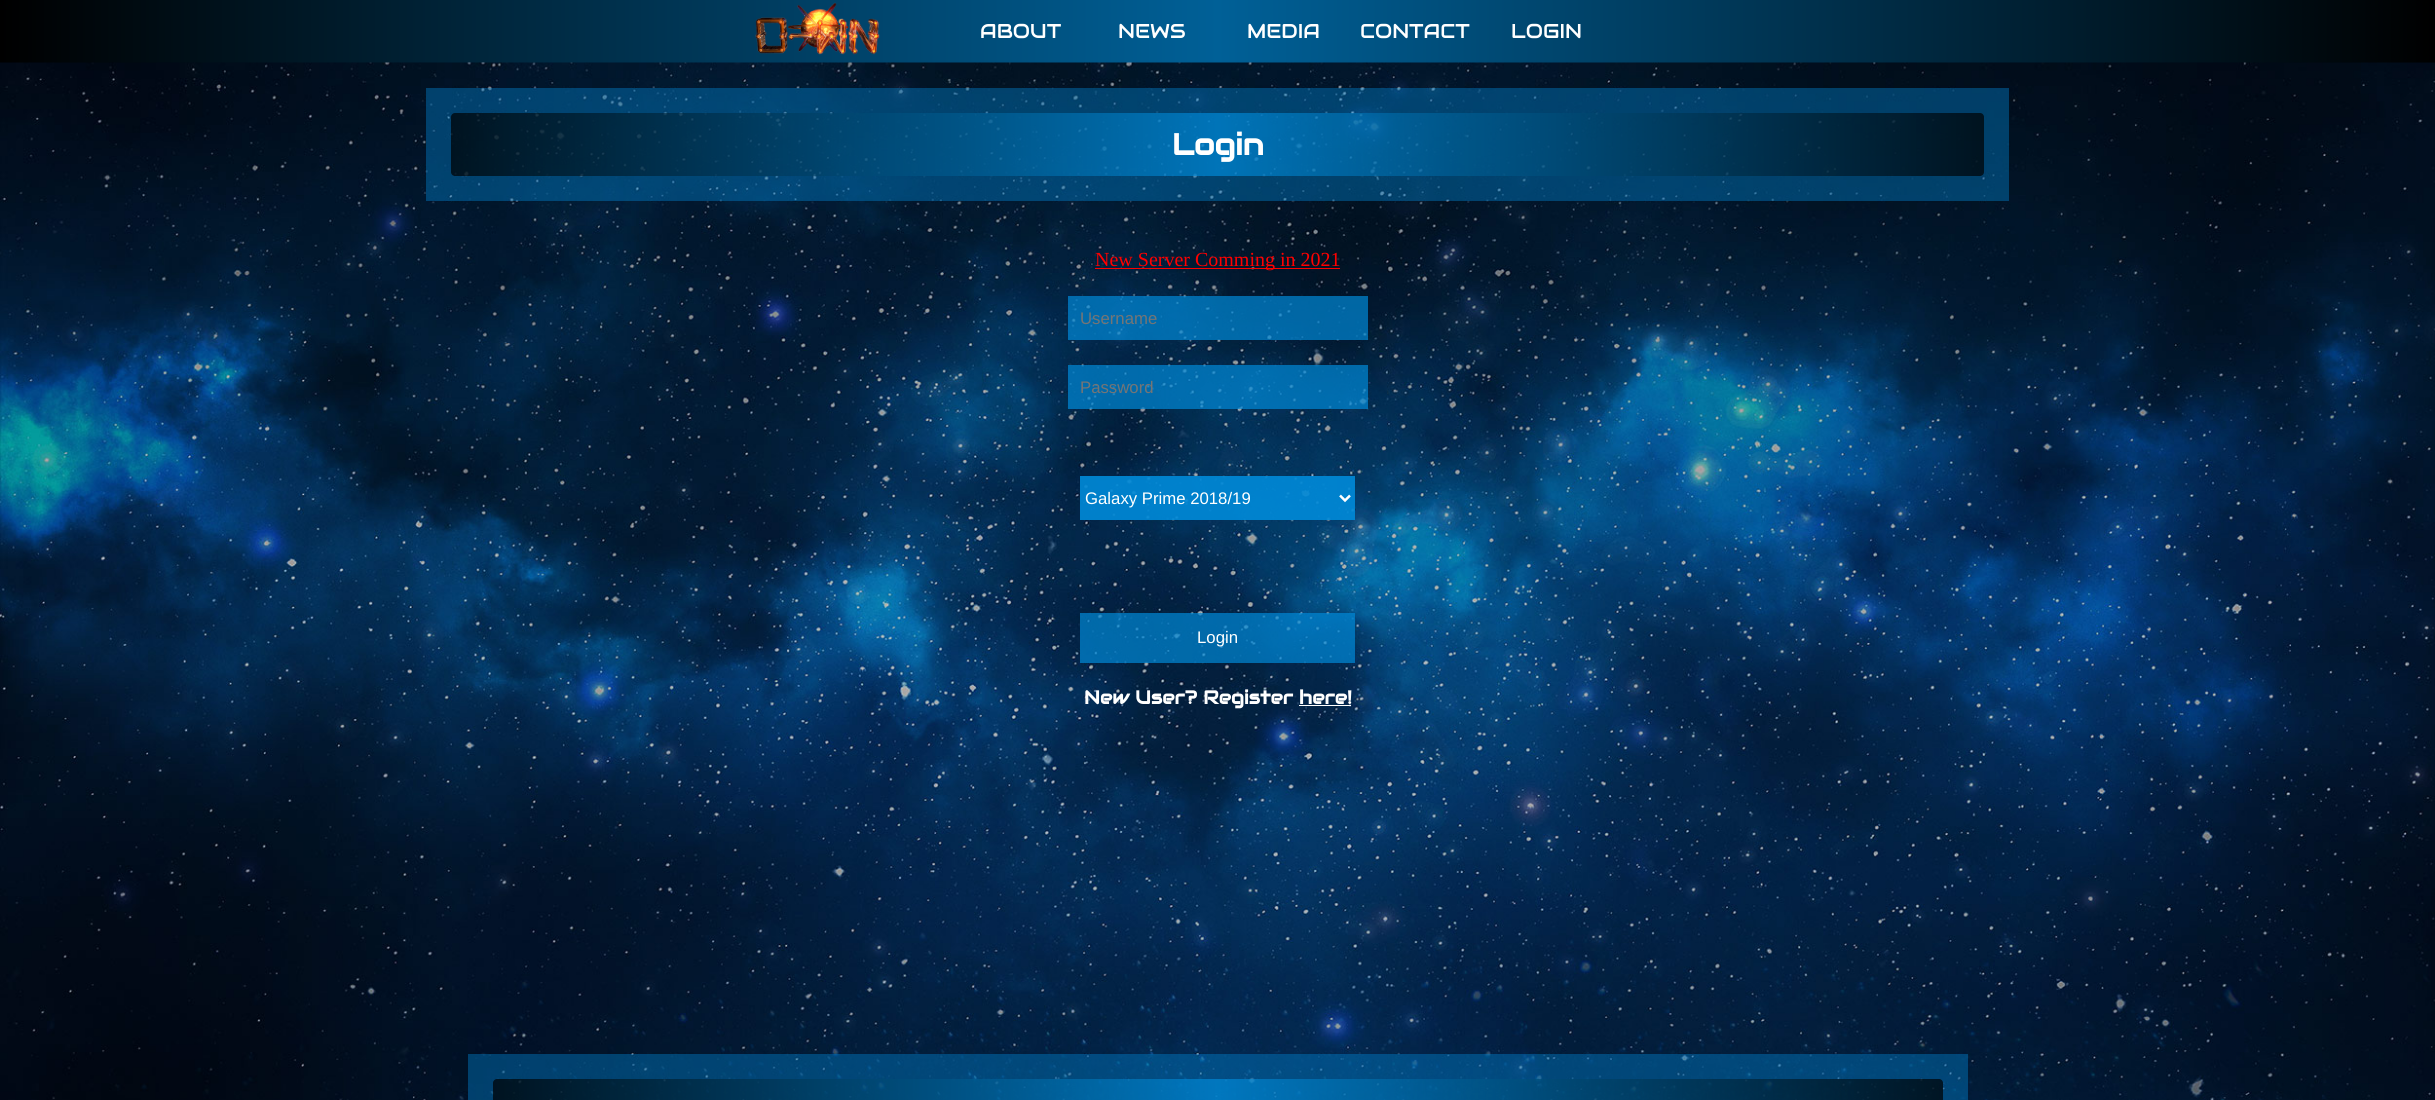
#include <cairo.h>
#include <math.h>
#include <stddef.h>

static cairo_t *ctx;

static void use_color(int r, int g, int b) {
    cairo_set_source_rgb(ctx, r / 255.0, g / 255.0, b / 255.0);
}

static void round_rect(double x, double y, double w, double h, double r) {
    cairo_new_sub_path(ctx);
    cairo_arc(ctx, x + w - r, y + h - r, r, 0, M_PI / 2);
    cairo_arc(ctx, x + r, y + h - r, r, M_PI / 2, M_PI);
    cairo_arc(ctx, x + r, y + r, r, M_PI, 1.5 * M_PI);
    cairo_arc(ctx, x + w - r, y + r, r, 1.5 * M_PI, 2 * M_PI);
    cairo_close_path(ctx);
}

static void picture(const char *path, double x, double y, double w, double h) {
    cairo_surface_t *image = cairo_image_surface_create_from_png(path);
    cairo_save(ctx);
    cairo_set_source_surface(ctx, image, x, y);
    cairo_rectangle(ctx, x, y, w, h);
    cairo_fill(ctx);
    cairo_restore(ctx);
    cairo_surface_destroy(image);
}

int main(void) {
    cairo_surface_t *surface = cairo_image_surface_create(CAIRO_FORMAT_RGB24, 2435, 1100);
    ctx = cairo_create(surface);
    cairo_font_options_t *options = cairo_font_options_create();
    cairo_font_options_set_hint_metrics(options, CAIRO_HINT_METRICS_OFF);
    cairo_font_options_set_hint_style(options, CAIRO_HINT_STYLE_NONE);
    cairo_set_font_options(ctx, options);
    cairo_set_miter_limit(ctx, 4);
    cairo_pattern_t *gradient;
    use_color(255, 255, 255);
    cairo_paint(ctx);
    gradient = cairo_pattern_create_linear(0, 31, 2435, 31);
    cairo_pattern_add_color_stop_rgba(gradient, 0, 0, 0, 0, 1);
    cairo_pattern_add_color_stop_rgba(gradient, 0.5, 0, 0.376, 0.592, 1);
    cairo_pattern_add_color_stop_rgba(gradient, 1, 0, 0, 0, 1);
    cairo_set_source(ctx, gradient);
    cairo_pattern_destroy(gradient);
    cairo_rectangle(ctx, 0, 0, 2435, 63);
    cairo_fill(ctx);
    picture("img1.png", 755, 2, 125, 53);
    cairo_select_font_face(ctx, "Audiowide", CAIRO_FONT_SLANT_NORMAL, CAIRO_FONT_WEIGHT_NORMAL);
    cairo_set_font_size(ctx, 20);
    use_color(255, 255, 255);
    cairo_move_to(ctx, 980, 38);
    cairo_show_text(ctx, "ABOUT");
    cairo_move_to(ctx, 1118, 38);
    cairo_show_text(ctx, "NEWS");
    cairo_move_to(ctx, 1247, 38);
    cairo_show_text(ctx, "MEDIA");
    cairo_move_to(ctx, 1360, 38);
    cairo_show_text(ctx, "CONTACT");
    cairo_move_to(ctx, 1511, 38);
    cairo_show_text(ctx, "LOGIN");
    picture("img2.png", 0, 62, 2435, 1038);
    cairo_set_source_rgba(ctx, 0, 0.537, 0.847, 0.4);
    cairo_rectangle(ctx, 426, 88, 1583, 113);
    cairo_fill(ctx);
    gradient = cairo_pattern_create_linear(451, 144, 1984, 144);
    cairo_pattern_add_color_stop_rgba(gradient, 0, 0, 0, 0, 0.7);
    cairo_pattern_add_color_stop_rgba(gradient, 0.5, 0, 0.537, 0.847, 0.7);
    cairo_pattern_add_color_stop_rgba(gradient, 1, 0, 0, 0, 0.7);
    cairo_set_source(ctx, gradient);
    cairo_pattern_destroy(gradient);
    round_rect(451, 113, 1533, 63, 4);
    cairo_fill(ctx);
    cairo_select_font_face(ctx, "Audiowide", CAIRO_FONT_SLANT_NORMAL, CAIRO_FONT_WEIGHT_BOLD);
    cairo_set_font_size(ctx, 30);
    use_color(255, 255, 255);
    cairo_move_to(ctx, 1172, 155);
    cairo_show_text(ctx, "Login");
    use_color(255, 0, 0);
    cairo_rectangle(ctx, 1095, 268, 245, 1);
    cairo_fill(ctx);
    cairo_select_font_face(ctx, "Liberation Serif", CAIRO_FONT_SLANT_NORMAL, CAIRO_FONT_WEIGHT_NORMAL);
    cairo_set_font_size(ctx, 20);
    cairo_move_to(ctx, 1095, 266);
    cairo_show_text(ctx, "New Server Comming in 2021");
    cairo_set_source_rgba(ctx, 0, 0.537, 0.847, 0.7);
    cairo_rectangle(ctx, 1068, 296, 300, 44);
    cairo_fill(ctx);
    cairo_select_font_face(ctx, "Liberation Sans", CAIRO_FONT_SLANT_NORMAL, CAIRO_FONT_WEIGHT_NORMAL);
    cairo_set_font_size(ctx, 16.75);
    use_color(117, 117, 117);
    cairo_move_to(ctx, 1080, 324);
    cairo_show_text(ctx, "Username");
    cairo_set_source_rgba(ctx, 0, 0.537, 0.847, 0.7);
    cairo_rectangle(ctx, 1068, 365, 300, 44);
    cairo_fill(ctx);
    use_color(117, 117, 117);
    cairo_move_to(ctx, 1080, 393);
    cairo_show_text(ctx, "Password");
    cairo_set_source_rgba(ctx, 0, 0.537, 0.847, 0.7);
    cairo_rectangle(ctx, 1080, 476, 275, 44);
    cairo_fill(ctx);
    cairo_rectangle(ctx, 1080, 476, 275, 44);
    cairo_fill(ctx);
    cairo_new_path(ctx);
    cairo_move_to(ctx, 1340, 495.5);
    cairo_line_to(ctx, 1345, 500.5);
    cairo_line_to(ctx, 1350, 495.5);
    use_color(255, 255, 255);
    cairo_set_line_width(ctx, 2.5);
    cairo_stroke(ctx);
    cairo_move_to(ctx, 1085, 504);
    cairo_show_text(ctx, "Galaxy Prime 2018/19");
    cairo_set_source_rgba(ctx, 0, 0.537, 0.847, 0.7);
    cairo_rectangle(ctx, 1080, 613, 275, 50);
    cairo_fill(ctx);
    use_color(255, 255, 255);
    cairo_move_to(ctx, 1197, 643);
    cairo_show_text(ctx, "Login");
    cairo_select_font_face(ctx, "Audiowide", CAIRO_FONT_SLANT_NORMAL, CAIRO_FONT_WEIGHT_BOLD);
    cairo_set_font_size(ctx, 18.75);
    cairo_move_to(ctx, 1084, 704);
    cairo_show_text(ctx, "New User? Register here!");
    cairo_rectangle(ctx, 1299, 705, 52, 1);
    cairo_fill(ctx);
    cairo_set_source_rgba(ctx, 0, 0.537, 0.847, 0.4);
    cairo_rectangle(ctx, 468, 1054, 1500, 46);
    cairo_fill(ctx);
    gradient = cairo_pattern_create_linear(493, 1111, 1943, 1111);
    cairo_pattern_add_color_stop_rgba(gradient, 0, 0, 0, 0, 0.7);
    cairo_pattern_add_color_stop_rgba(gradient, 0.5, 0, 0.537, 0.847, 0.7);
    cairo_pattern_add_color_stop_rgba(gradient, 1, 0, 0, 0, 0.7);
    cairo_set_source(ctx, gradient);
    cairo_pattern_destroy(gradient);
    round_rect(493, 1079, 1450, 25, 4);
    cairo_fill(ctx);
    cairo_surface_write_to_png(surface, "result.png");
    cairo_font_options_destroy(options);
    cairo_destroy(ctx);
    cairo_surface_destroy(surface);
    return 0;
}
